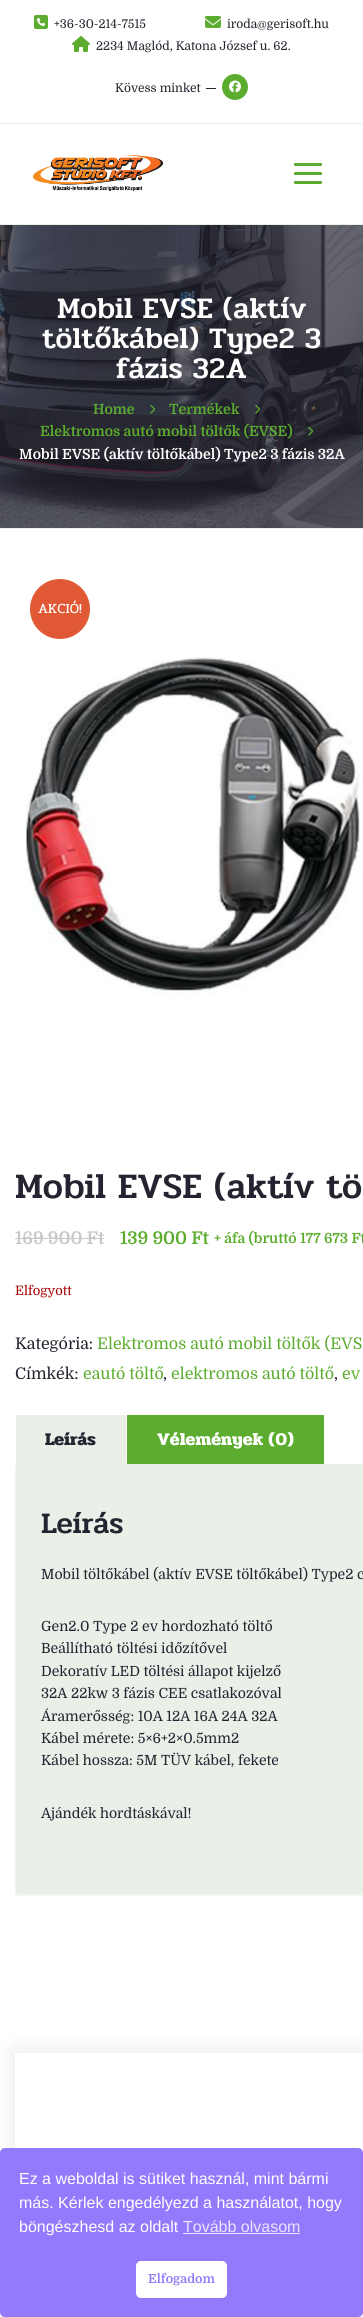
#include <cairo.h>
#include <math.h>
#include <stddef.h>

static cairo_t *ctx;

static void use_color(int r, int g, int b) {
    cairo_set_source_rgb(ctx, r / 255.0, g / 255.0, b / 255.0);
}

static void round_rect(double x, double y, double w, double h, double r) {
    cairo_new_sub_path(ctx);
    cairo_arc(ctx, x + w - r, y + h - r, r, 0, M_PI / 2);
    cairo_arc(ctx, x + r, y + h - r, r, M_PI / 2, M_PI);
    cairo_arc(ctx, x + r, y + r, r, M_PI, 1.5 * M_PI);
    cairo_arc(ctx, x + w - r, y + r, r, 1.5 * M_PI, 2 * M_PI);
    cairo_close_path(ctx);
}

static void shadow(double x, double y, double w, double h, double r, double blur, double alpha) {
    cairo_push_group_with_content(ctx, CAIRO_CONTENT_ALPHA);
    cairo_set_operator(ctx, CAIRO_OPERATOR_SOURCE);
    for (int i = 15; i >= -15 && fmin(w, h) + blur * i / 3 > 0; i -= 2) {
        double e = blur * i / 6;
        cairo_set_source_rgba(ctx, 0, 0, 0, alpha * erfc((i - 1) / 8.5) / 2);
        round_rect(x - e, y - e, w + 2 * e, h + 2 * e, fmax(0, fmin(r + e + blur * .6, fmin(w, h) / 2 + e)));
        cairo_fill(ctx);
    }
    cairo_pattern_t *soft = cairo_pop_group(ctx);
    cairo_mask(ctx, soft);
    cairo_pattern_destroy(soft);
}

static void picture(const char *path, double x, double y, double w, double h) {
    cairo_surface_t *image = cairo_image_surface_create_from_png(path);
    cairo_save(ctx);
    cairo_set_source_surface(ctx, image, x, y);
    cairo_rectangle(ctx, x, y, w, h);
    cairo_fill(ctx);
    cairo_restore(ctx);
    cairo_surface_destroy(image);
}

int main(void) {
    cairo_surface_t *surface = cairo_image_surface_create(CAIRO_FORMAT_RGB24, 363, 2317);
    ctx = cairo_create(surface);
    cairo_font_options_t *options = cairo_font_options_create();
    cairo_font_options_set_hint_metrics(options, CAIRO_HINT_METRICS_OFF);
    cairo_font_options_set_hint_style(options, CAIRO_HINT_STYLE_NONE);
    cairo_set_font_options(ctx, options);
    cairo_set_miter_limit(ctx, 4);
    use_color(255, 255, 255);
    cairo_paint(ctx);
    use_color(234, 239, 232);
    cairo_rectangle(ctx, 0, 123, 363, 1);
    cairo_fill(ctx);
    picture("img1.png", 34, 15, 14, 14);
    cairo_select_font_face(ctx, "Domine", CAIRO_FONT_SLANT_NORMAL, CAIRO_FONT_WEIGHT_NORMAL);
    cairo_set_font_size(ctx, 12);
    use_color(36, 36, 48);
    cairo_move_to(ctx, 54, 28);
    cairo_show_text(ctx, "+36-30-214-7515");
    picture("img2.png", 205, 16, 16, 12);
    cairo_move_to(ctx, 227, 28);
    cairo_show_text(ctx, "iroda@gerisoft.hu");
    picture("img3.png", 72, 36, 18, 16);
    cairo_move_to(ctx, 96, 50);
    cairo_show_text(ctx, "2234 Maglód, Katona József u. 62.");
    cairo_move_to(ctx, 115, 92);
    cairo_show_text(ctx, "Kövess minket");
    cairo_rectangle(ctx, 206, 88, 10, 1);
    cairo_fill(ctx);
    use_color(92, 173, 47);
    cairo_arc(ctx, 235, 87, 13, 0, 2 * M_PI);
    cairo_fill(ctx);
    picture("img4.png", 229, 80, 12, 13);
    use_color(234, 239, 232);
    cairo_rectangle(ctx, 0, 224, 363, 1);
    cairo_fill(ctx);
    picture("img5.png", 32, 155, 132, 37);
    use_color(92, 173, 47);
    round_rect(294, 163, 28, 3, 1);
    cairo_fill(ctx);
    round_rect(294, 172, 28, 3, 1);
    cairo_fill(ctx);
    round_rect(294, 181, 28, 3, 1);
    cairo_fill(ctx);
    picture("img6.png", 0, 225, 363, 303);
    use_color(238, 238, 238);
    cairo_rectangle(ctx, 0, 528, 363, 1);
    cairo_fill(ctx);
    cairo_select_font_face(ctx, "Pridi Medium", CAIRO_FONT_SLANT_NORMAL, CAIRO_FONT_WEIGHT_NORMAL);
    cairo_set_font_size(ctx, 30);
    use_color(255, 255, 255);
    cairo_move_to(ctx, 57, 318);
    cairo_show_text(ctx, "Mobil EVSE (aktív");
    cairo_move_to(ctx, 42, 348);
    cairo_show_text(ctx, "töltőkábel) Type2 3");
    cairo_move_to(ctx, 116, 378);
    cairo_show_text(ctx, "fázis 32A");
    cairo_select_font_face(ctx, "Domine", CAIRO_FONT_SLANT_NORMAL, CAIRO_FONT_WEIGHT_BOLD);
    cairo_set_font_size(ctx, 14);
    use_color(92, 173, 47);
    cairo_move_to(ctx, 93, 414);
    cairo_show_text(ctx, "Home");
    picture("img7.png", 150, 405, 6, 9);
    cairo_move_to(ctx, 169, 414);
    cairo_show_text(ctx, "Termékek");
    picture("img8.png", 255, 405, 6, 9);
    cairo_move_to(ctx, 40, 436);
    cairo_show_text(ctx, "Elektromos autó mobil töltők (EVSE)");
    picture("img9.png", 308, 426, 6, 10);
    use_color(255, 255, 255);
    cairo_move_to(ctx, 19, 459);
    cairo_show_text(ctx, "Mobil EVSE (aktív töltőkábel) Type2 3 fázis 32A");
    use_color(225, 89, 52);
    cairo_new_path(ctx);
    cairo_arc(ctx, 60, 609, 30, 0, 2 * M_PI);
    cairo_fill(ctx);
    cairo_select_font_face(ctx, "Pridi", CAIRO_FONT_SLANT_NORMAL, CAIRO_FONT_WEIGHT_NORMAL);
    use_color(255, 255, 255);
    cairo_move_to(ctx, 38, 613);
    cairo_show_text(ctx, "AKCIÓ!");
    picture("img10.png", 25, 657, 336, 338);
    cairo_select_font_face(ctx, "Pridi Medium", CAIRO_FONT_SLANT_NORMAL, CAIRO_FONT_WEIGHT_NORMAL);
    cairo_set_font_size(ctx, 36);
    use_color(36, 36, 48);
    cairo_move_to(ctx, 15, 1198);
    cairo_show_text(ctx, "Mobil EVSE (aktív tö");
    cairo_select_font_face(ctx, "Domine", CAIRO_FONT_SLANT_NORMAL, CAIRO_FONT_WEIGHT_BOLD);
    cairo_set_font_size(ctx, 17.5);
    use_color(200, 200, 203);
    cairo_move_to(ctx, 15, 1244);
    cairo_show_text(ctx, "169 900 Ft");
    cairo_rectangle(ctx, 15, 1238, 89, 1);
    cairo_fill(ctx);
    use_color(92, 173, 47);
    cairo_move_to(ctx, 120, 1244);
    cairo_show_text(ctx, "139 900 Ft");
    cairo_set_font_size(ctx, 14);
    cairo_move_to(ctx, 214, 1243);
    cairo_show_text(ctx, "+ áfa (bruttó 177 673 Ft");
    cairo_select_font_face(ctx, "Domine", CAIRO_FONT_SLANT_NORMAL, CAIRO_FONT_WEIGHT_NORMAL);
    cairo_set_font_size(ctx, 13);
    use_color(170, 0, 0);
    cairo_move_to(ctx, 15, 1295);
    cairo_show_text(ctx, "Elfogyott");
    cairo_set_font_size(ctx, 16);
    use_color(36, 36, 48);
    cairo_move_to(ctx, 15, 1349);
    cairo_show_text(ctx, "Kategória:");
    use_color(92, 173, 47);
    cairo_move_to(ctx, 97, 1349);
    cairo_show_text(ctx, "Elektromos autó mobil töltők (EVS");
    use_color(36, 36, 48);
    cairo_move_to(ctx, 15, 1379);
    cairo_show_text(ctx, "Címkék:");
    use_color(92, 173, 47);
    cairo_move_to(ctx, 83, 1379);
    cairo_show_text(ctx, "eautó töltő");
    use_color(36, 36, 48);
    cairo_move_to(ctx, 163, 1379);
    cairo_show_text(ctx, ",");
    use_color(92, 173, 47);
    cairo_move_to(ctx, 171, 1379);
    cairo_show_text(ctx, "elektromos autó töltő");
    use_color(36, 36, 48);
    cairo_move_to(ctx, 334, 1379);
    cairo_show_text(ctx, ",");
    use_color(92, 173, 47);
    cairo_move_to(ctx, 342, 1379);
    cairo_show_text(ctx, "ev");
    use_color(0, 0, 0);
    shadow(15, 1464, 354, 432, 4, 0.5, 0.05);
    use_color(234, 239, 232);
    cairo_rectangle(ctx, 16, 1415, 110, 49);
    cairo_fill(ctx);
    cairo_select_font_face(ctx, "Pridi", CAIRO_FONT_SLANT_NORMAL, CAIRO_FONT_WEIGHT_BOLD);
    cairo_set_font_size(ctx, 18);
    use_color(36, 36, 48);
    cairo_move_to(ctx, 45, 1445);
    cairo_show_text(ctx, "Leírás");
    use_color(92, 173, 47);
    cairo_rectangle(ctx, 127, 1415, 197, 49);
    cairo_fill(ctx);
    use_color(255, 255, 255);
    cairo_move_to(ctx, 157, 1445);
    cairo_show_text(ctx, "Vélemények (0)");
    use_color(234, 239, 232);
    cairo_new_path(ctx);
    cairo_move_to(ctx, 16, 1464);
    cairo_line_to(ctx, 363, 1464);
    cairo_curve_to(ctx, 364.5, 1464, 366, 1465.5, 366, 1467);
    cairo_line_to(ctx, 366, 1891);
    cairo_curve_to(ctx, 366, 1892.5, 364.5, 1894, 363, 1894);
    cairo_line_to(ctx, 19, 1894);
    cairo_curve_to(ctx, 17.5, 1894, 16, 1892.5, 16, 1891);
    cairo_close_path(ctx);
    cairo_fill(ctx);
    cairo_select_font_face(ctx, "Pridi Medium", CAIRO_FONT_SLANT_NORMAL, CAIRO_FONT_WEIGHT_NORMAL);
    cairo_set_font_size(ctx, 30);
    use_color(36, 36, 48);
    cairo_move_to(ctx, 41, 1533);
    cairo_show_text(ctx, "Leírás");
    cairo_select_font_face(ctx, "Domine", CAIRO_FONT_SLANT_NORMAL, CAIRO_FONT_WEIGHT_NORMAL);
    cairo_set_font_size(ctx, 14);
    cairo_move_to(ctx, 41, 1579);
    cairo_show_text(ctx, "Mobil töltőkábel (aktív EVSE töltőkábel) Type2 c");
    cairo_move_to(ctx, 41, 1631);
    cairo_show_text(ctx, "Gen2.0 Type 2 ev hordozható töltő");
    cairo_move_to(ctx, 41, 1653);
    cairo_show_text(ctx, "Beállítható töltési időzítővel");
    cairo_move_to(ctx, 41, 1676);
    cairo_show_text(ctx, "Dekoratív LED töltési állapot kijelző");
    cairo_move_to(ctx, 41, 1698);
    cairo_show_text(ctx, "32A 22kw 3 fázis CEE csatlakozóval");
    cairo_move_to(ctx, 41, 1721);
    cairo_show_text(ctx, "Áramerősség: 10A 12A 16A 24A 32A");
    cairo_move_to(ctx, 41, 1743);
    cairo_show_text(ctx, "Kábel mérete: 5×6+2×0.5mm2");
    cairo_move_to(ctx, 41, 1765);
    cairo_show_text(ctx, "Kábel hossza: 5M TÜV kábel, fekete");
    cairo_move_to(ctx, 41, 1818);
    cairo_show_text(ctx, "Ajándék hordtáskával!");
    cairo_save(ctx);
    cairo_set_fill_rule(ctx, CAIRO_FILL_RULE_EVEN_ODD);
    cairo_new_path(ctx);
    cairo_move_to(ctx, 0, 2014);
    cairo_line_to(ctx, 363, 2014);
    cairo_line_to(ctx, 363, 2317);
    cairo_line_to(ctx, 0, 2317);
    cairo_close_path(ctx);
    cairo_move_to(ctx, 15, 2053);
    cairo_line_to(ctx, 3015, 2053);
    cairo_line_to(ctx, 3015, 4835);
    cairo_line_to(ctx, 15, 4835);
    cairo_close_path(ctx);
    cairo_clip(ctx);
    use_color(0, 0, 0);
    shadow(15, 2053, 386, 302, 0, 12.5, 0.1);
    cairo_restore(ctx);
    use_color(147, 122, 252);
    round_rect(0, 2148, 363, 169, 5);
    cairo_fill(ctx);
    cairo_select_font_face(ctx, "Liberation Sans", CAIRO_FONT_SLANT_NORMAL, CAIRO_FONT_WEIGHT_NORMAL);
    cairo_set_font_size(ctx, 16);
    use_color(255, 255, 255);
    cairo_move_to(ctx, 19, 2184);
    cairo_show_text(ctx, "Ez a weboldal is sütiket használ, mint bármi");
    cairo_move_to(ctx, 19, 2208);
    cairo_show_text(ctx, "más. Kérlek engedélyezd a használatot, hogy");
    cairo_move_to(ctx, 19, 2232);
    cairo_show_text(ctx, "böngészhesd az oldalt");
    use_color(233, 228, 254);
    cairo_move_to(ctx, 183, 2232);
    cairo_show_text(ctx, "Tovább olvasom");
    cairo_rectangle(ctx, 183, 2233, 117, 1);
    cairo_fill(ctx);
    use_color(255, 255, 255);
    round_rect(136, 2261, 91, 37, 5);
    cairo_fill(ctx);
    cairo_select_font_face(ctx, "Domine", CAIRO_FONT_SLANT_NORMAL, CAIRO_FONT_WEIGHT_BOLD);
    cairo_set_font_size(ctx, 12.5);
    use_color(147, 122, 252);
    cairo_move_to(ctx, 148, 2283);
    cairo_show_text(ctx, "Elfogadom");
    cairo_surface_write_to_png(surface, "result.png");
    cairo_font_options_destroy(options);
    cairo_destroy(ctx);
    cairo_surface_destroy(surface);
    return 0;
}
